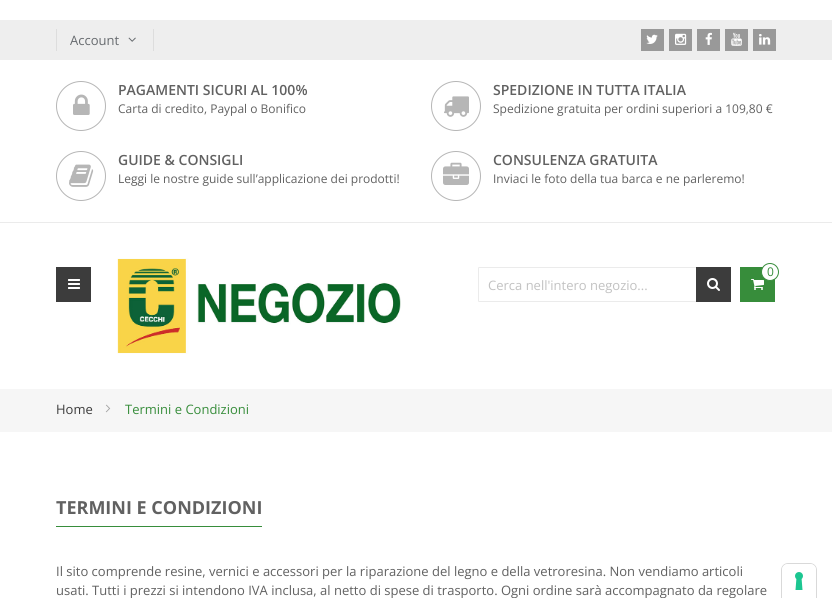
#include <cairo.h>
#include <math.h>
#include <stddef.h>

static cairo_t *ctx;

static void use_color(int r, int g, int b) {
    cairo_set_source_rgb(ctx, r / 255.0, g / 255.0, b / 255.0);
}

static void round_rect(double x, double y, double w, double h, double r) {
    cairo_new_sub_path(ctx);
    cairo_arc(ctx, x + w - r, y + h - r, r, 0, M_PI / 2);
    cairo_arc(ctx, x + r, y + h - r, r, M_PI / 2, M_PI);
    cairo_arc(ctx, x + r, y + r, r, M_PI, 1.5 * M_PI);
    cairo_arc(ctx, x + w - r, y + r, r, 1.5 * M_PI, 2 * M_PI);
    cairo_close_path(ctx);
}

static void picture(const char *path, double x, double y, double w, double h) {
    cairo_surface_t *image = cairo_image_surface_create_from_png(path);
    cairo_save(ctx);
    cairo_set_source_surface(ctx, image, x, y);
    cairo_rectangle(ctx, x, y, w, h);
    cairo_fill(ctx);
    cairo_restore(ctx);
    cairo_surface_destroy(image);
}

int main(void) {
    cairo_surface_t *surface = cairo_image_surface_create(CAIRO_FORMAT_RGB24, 832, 598);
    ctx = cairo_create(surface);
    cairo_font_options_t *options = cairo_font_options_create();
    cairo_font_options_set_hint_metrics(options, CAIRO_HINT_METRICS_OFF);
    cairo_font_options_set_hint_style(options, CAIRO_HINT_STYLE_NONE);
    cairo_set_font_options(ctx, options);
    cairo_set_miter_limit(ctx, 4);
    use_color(255, 255, 255);
    cairo_paint(ctx);
    use_color(238, 238, 238);
    cairo_rectangle(ctx, 0, 20, 832, 40);
    cairo_fill(ctx);
    use_color(221, 221, 221);
    cairo_rectangle(ctx, 153, 29, 1, 22);
    cairo_fill(ctx);
    cairo_rectangle(ctx, 56, 29, 1, 22);
    cairo_fill(ctx);
    cairo_select_font_face(ctx, "Open Sans", CAIRO_FONT_SLANT_NORMAL, CAIRO_FONT_WEIGHT_NORMAL);
    cairo_set_font_size(ctx, 13);
    use_color(102, 106, 110);
    cairo_move_to(ctx, 70, 45);
    cairo_show_text(ctx, "Account");
    picture("img1.png", 128, 37, 8, 5);
    use_color(153, 153, 153);
    cairo_rectangle(ctx, 641, 29, 23, 22);
    cairo_fill(ctx);
    picture("img2.png", 646, 34, 12, 10);
    cairo_rectangle(ctx, 669, 29, 23, 22);
    cairo_fill(ctx);
    picture("img3.png", 675, 33, 12, 12);
    cairo_rectangle(ctx, 697, 29, 23, 22);
    cairo_fill(ctx);
    picture("img4.png", 705, 32, 7, 13);
    cairo_rectangle(ctx, 725, 29, 23, 22);
    cairo_fill(ctx);
    picture("img5.png", 731, 32, 11, 14);
    cairo_rectangle(ctx, 753, 29, 23, 22);
    cairo_fill(ctx);
    picture("img6.png", 759, 34, 12, 11);
    cairo_arc(ctx, 81, 106, 24.5, 0, 2 * M_PI);
    use_color(182, 182, 182);
    cairo_set_line_width(ctx, 1);
    cairo_stroke(ctx);
    picture("img7.png", 73, 94, 17, 21);
    cairo_select_font_face(ctx, "Open Sans SemiBold", CAIRO_FONT_SLANT_NORMAL, CAIRO_FONT_WEIGHT_NORMAL);
    cairo_set_font_size(ctx, 14);
    use_color(97, 97, 97);
    cairo_move_to(ctx, 118, 95);
    cairo_show_text(ctx, "PAGAMENTI SICURI AL 100%");
    cairo_select_font_face(ctx, "Open Sans", CAIRO_FONT_SLANT_NORMAL, CAIRO_FONT_WEIGHT_NORMAL);
    cairo_set_font_size(ctx, 12);
    cairo_move_to(ctx, 118, 113);
    cairo_show_text(ctx, "Carta di credito, Paypal o Bonifico");
    cairo_new_path(ctx);
    cairo_arc(ctx, 456, 106, 24.5, 0, 2 * M_PI);
    use_color(182, 182, 182);
    cairo_stroke(ctx);
    picture("img8.png", 444, 96, 25, 21);
    cairo_select_font_face(ctx, "Open Sans SemiBold", CAIRO_FONT_SLANT_NORMAL, CAIRO_FONT_WEIGHT_NORMAL);
    cairo_set_font_size(ctx, 14);
    use_color(97, 97, 97);
    cairo_move_to(ctx, 493, 95);
    cairo_show_text(ctx, "SPEDIZIONE IN TUTTA ITALIA");
    cairo_select_font_face(ctx, "Open Sans", CAIRO_FONT_SLANT_NORMAL, CAIRO_FONT_WEIGHT_NORMAL);
    cairo_set_font_size(ctx, 12);
    cairo_move_to(ctx, 493, 113);
    cairo_show_text(ctx, "Spedizione gratuita per ordini superiori a 109,80 €");
    cairo_new_path(ctx);
    cairo_arc(ctx, 81, 176, 24.5, 0, 2 * M_PI);
    use_color(182, 182, 182);
    cairo_stroke(ctx);
    picture("img9.png", 69, 164, 25, 23);
    cairo_select_font_face(ctx, "Open Sans SemiBold", CAIRO_FONT_SLANT_NORMAL, CAIRO_FONT_WEIGHT_NORMAL);
    cairo_set_font_size(ctx, 14);
    use_color(97, 97, 97);
    cairo_move_to(ctx, 118, 165);
    cairo_show_text(ctx, "GUIDE & CONSIGLI");
    cairo_select_font_face(ctx, "Open Sans", CAIRO_FONT_SLANT_NORMAL, CAIRO_FONT_WEIGHT_NORMAL);
    cairo_set_font_size(ctx, 12);
    cairo_move_to(ctx, 118, 183);
    cairo_show_text(ctx, "Leggi le nostre guide sull’applicazione dei prodotti!");
    cairo_new_path(ctx);
    cairo_arc(ctx, 456, 176, 24.5, 0, 2 * M_PI);
    use_color(182, 182, 182);
    cairo_stroke(ctx);
    picture("img10.png", 443, 162, 26, 23);
    cairo_select_font_face(ctx, "Open Sans SemiBold", CAIRO_FONT_SLANT_NORMAL, CAIRO_FONT_WEIGHT_NORMAL);
    cairo_set_font_size(ctx, 14);
    use_color(97, 97, 97);
    cairo_move_to(ctx, 493, 165);
    cairo_show_text(ctx, "CONSULENZA GRATUITA");
    cairo_select_font_face(ctx, "Open Sans", CAIRO_FONT_SLANT_NORMAL, CAIRO_FONT_WEIGHT_NORMAL);
    cairo_set_font_size(ctx, 12);
    cairo_move_to(ctx, 493, 183);
    cairo_show_text(ctx, "Inviaci le foto della tua barca e ne parleremo!");
    use_color(235, 235, 235);
    cairo_rectangle(ctx, 0, 222, 832, 1);
    cairo_fill(ctx);
    use_color(60, 60, 60);
    cairo_rectangle(ctx, 56, 267, 35, 35);
    cairo_fill(ctx);
    picture("img11.png", 68, 279, 12, 10);
    picture("img12.png", 117, 258, 284, 96);
    use_color(55, 141, 59);
    cairo_rectangle(ctx, 740, 267, 35, 35);
    cairo_fill(ctx);
    picture("img13.png", 751, 279, 13, 11);
    use_color(255, 255, 255);
    cairo_arc(ctx, 770, 272, 8.5, 0, 2 * M_PI);
    cairo_fill_preserve(ctx);
    use_color(55, 141, 59);
    cairo_stroke(ctx);
    cairo_move_to(ctx, 767, 276);
    cairo_show_text(ctx, "0");
    round_rect(478.5, 267.5, 249, 34, 0.5);
    use_color(235, 235, 235);
    cairo_stroke(ctx);
    cairo_set_font_size(ctx, 13);
    use_color(194, 194, 194);
    cairo_move_to(ctx, 488, 290);
    cairo_show_text(ctx, "Cerca nell'intero negozio...");
    use_color(60, 60, 60);
    cairo_rectangle(ctx, 696, 267, 35, 35);
    cairo_fill(ctx);
    picture("img14.png", 707, 278, 13, 13);
    use_color(246, 246, 246);
    cairo_rectangle(ctx, 0, 389, 832, 43);
    cairo_fill(ctx);
    use_color(60, 60, 60);
    cairo_move_to(ctx, 56, 414);
    cairo_show_text(ctx, "Home");
    picture("img15.png", 105, 404, 6, 9);
    use_color(55, 141, 59);
    cairo_move_to(ctx, 125, 414);
    cairo_show_text(ctx, "Termini e Condizioni");
    cairo_select_font_face(ctx, "Open Sans", CAIRO_FONT_SLANT_NORMAL, CAIRO_FONT_WEIGHT_BOLD);
    cairo_set_font_size(ctx, 18);
    use_color(97, 97, 97);
    cairo_move_to(ctx, 56, 514);
    cairo_show_text(ctx, "TERMINI E CONDIZIONI");
    use_color(55, 141, 59);
    cairo_rectangle(ctx, 56, 526, 206, 1);
    cairo_fill(ctx);
    cairo_select_font_face(ctx, "Open Sans", CAIRO_FONT_SLANT_NORMAL, CAIRO_FONT_WEIGHT_NORMAL);
    cairo_set_font_size(ctx, 13);
    use_color(97, 97, 97);
    cairo_move_to(ctx, 56, 576);
    cairo_show_text(ctx, "Il sito comprende resine, vernici e accessori per la riparazione del legno e della vetroresina. Non vendiamo articoli");
    cairo_move_to(ctx, 56, 595);
    cairo_show_text(ctx, "usati. Tutti i prezzi si intendono IVA inclusa, al netto di spese di trasporto. Ogni ordine sarà accompagnato da regolare");
    cairo_new_path(ctx);
    cairo_move_to(ctx, 788, 563.5);
    cairo_line_to(ctx, 810, 563.5);
    cairo_curve_to(ctx, 813.5, 563.5, 816.5, 566.5, 816.5, 570);
    cairo_line_to(ctx, 816.5, 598.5);
    cairo_line_to(ctx, 781.5, 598.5);
    cairo_line_to(ctx, 781.5, 570);
    cairo_curve_to(ctx, 781.5, 566.5, 784.5, 563.5, 788, 563.5);
    cairo_close_path(ctx);
    use_color(217, 217, 217);
    cairo_stroke(ctx);
    use_color(255, 255, 255);
    cairo_new_path(ctx);
    cairo_move_to(ctx, 788, 564);
    cairo_line_to(ctx, 810, 564);
    cairo_curve_to(ctx, 813.5, 564, 816, 566.5, 816, 570);
    cairo_line_to(ctx, 816, 598);
    cairo_line_to(ctx, 782, 598);
    cairo_line_to(ctx, 782, 570);
    cairo_curve_to(ctx, 782, 566.5, 784.5, 564, 788, 564);
    cairo_close_path(ctx);
    cairo_fill(ctx);
    picture("img16.png", 795, 572, 8, 18);
    cairo_surface_write_to_png(surface, "result.png");
    cairo_font_options_destroy(options);
    cairo_destroy(ctx);
    cairo_surface_destroy(surface);
    return 0;
}
